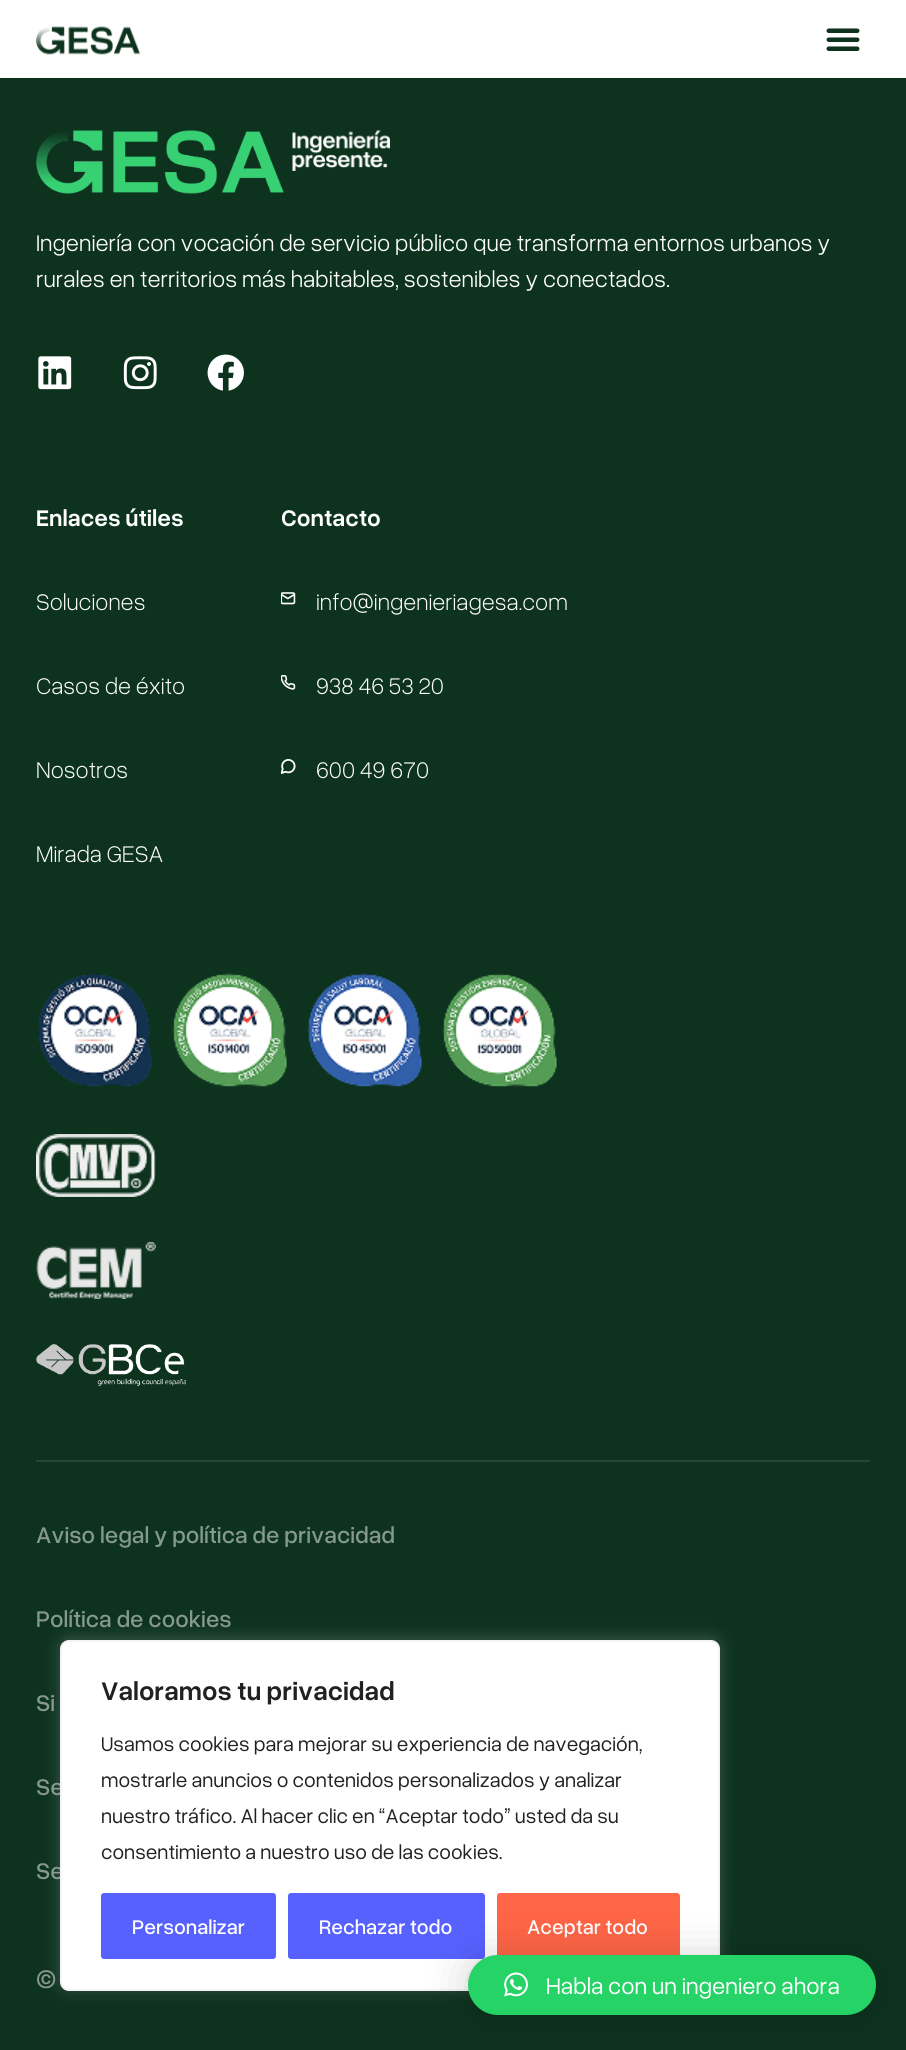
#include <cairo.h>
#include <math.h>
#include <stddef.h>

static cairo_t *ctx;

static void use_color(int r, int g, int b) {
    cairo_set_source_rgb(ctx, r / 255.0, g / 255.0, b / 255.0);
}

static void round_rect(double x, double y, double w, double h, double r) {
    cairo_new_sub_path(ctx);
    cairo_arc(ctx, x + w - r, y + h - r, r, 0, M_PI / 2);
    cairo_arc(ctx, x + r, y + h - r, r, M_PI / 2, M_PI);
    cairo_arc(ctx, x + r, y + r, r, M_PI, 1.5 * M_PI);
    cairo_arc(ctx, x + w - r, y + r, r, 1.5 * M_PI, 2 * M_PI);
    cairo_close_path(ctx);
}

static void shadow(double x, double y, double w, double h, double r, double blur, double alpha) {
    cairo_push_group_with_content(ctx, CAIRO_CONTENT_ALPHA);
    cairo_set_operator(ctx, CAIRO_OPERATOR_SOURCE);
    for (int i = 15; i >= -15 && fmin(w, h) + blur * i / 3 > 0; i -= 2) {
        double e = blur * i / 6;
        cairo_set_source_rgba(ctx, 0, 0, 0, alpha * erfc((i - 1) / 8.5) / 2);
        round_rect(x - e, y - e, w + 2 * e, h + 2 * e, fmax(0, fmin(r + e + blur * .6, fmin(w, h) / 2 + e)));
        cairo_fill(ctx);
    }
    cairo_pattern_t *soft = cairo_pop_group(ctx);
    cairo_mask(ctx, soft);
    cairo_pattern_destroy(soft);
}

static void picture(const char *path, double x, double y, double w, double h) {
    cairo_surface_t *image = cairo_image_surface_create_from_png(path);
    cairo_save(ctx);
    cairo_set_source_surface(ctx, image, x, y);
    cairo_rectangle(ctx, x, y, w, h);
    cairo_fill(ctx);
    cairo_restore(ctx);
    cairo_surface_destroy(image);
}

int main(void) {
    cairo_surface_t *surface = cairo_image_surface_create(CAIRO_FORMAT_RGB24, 906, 2050);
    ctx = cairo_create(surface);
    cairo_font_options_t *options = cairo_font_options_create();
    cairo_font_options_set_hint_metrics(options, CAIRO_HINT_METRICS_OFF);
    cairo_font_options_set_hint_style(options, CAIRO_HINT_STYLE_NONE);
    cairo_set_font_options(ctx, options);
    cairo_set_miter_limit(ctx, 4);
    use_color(13, 51, 31);
    cairo_paint(ctx);
    use_color(255, 255, 255);
    cairo_rectangle(ctx, 0, 0, 906, 78);
    cairo_fill(ctx);
    picture("img1.png", 36, 26, 104, 29);
    picture("img2.png", 826, 28, 34, 23);
    picture("img3.png", 36, 130, 248, 64);
    picture("img4.png", 292, 130, 98, 41);
    cairo_select_font_face(ctx, "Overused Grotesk", CAIRO_FONT_SLANT_NORMAL, CAIRO_FONT_WEIGHT_NORMAL);
    cairo_set_font_size(ctx, 24);
    cairo_move_to(ctx, 36, 251);
    cairo_show_text(ctx, "Ingeniería con vocación de servicio público que transforma entornos urbanos y");
    cairo_move_to(ctx, 36, 287);
    cairo_show_text(ctx, "rurales en territorios más habitables, sostenibles y conectados.");
    picture("img5.png", 38, 356, 34, 34);
    picture("img6.png", 123, 356, 34, 34);
    picture("img7.png", 207, 354, 37, 37);
    cairo_select_font_face(ctx, "Overused Grotesk SemiBold", CAIRO_FONT_SLANT_NORMAL, CAIRO_FONT_WEIGHT_NORMAL);
    cairo_move_to(ctx, 36, 526);
    cairo_show_text(ctx, "Enlaces útiles");
    cairo_select_font_face(ctx, "Overused Grotesk Light", CAIRO_FONT_SLANT_NORMAL, CAIRO_FONT_WEIGHT_NORMAL);
    cairo_move_to(ctx, 36, 610);
    cairo_show_text(ctx, "Soluciones");
    cairo_move_to(ctx, 36, 694);
    cairo_show_text(ctx, "Casos de éxito");
    cairo_move_to(ctx, 36, 778);
    cairo_show_text(ctx, "Nosotros");
    cairo_move_to(ctx, 36, 862);
    cairo_show_text(ctx, "Mirada GESA");
    cairo_select_font_face(ctx, "Overused Grotesk SemiBold", CAIRO_FONT_SLANT_NORMAL, CAIRO_FONT_WEIGHT_NORMAL);
    cairo_move_to(ctx, 281, 526);
    cairo_show_text(ctx, "Contacto");
    picture("img8.png", 281, 592, 15, 13);
    cairo_select_font_face(ctx, "Overused Grotesk Light", CAIRO_FONT_SLANT_NORMAL, CAIRO_FONT_WEIGHT_NORMAL);
    cairo_move_to(ctx, 316, 610);
    cairo_show_text(ctx, "info@ingenieriagesa.com");
    picture("img9.png", 281, 675, 15, 15);
    cairo_move_to(ctx, 316, 694);
    cairo_show_text(ctx, "938 46 53 20");
    picture("img10.png", 281, 759, 15, 15);
    cairo_move_to(ctx, 316, 778);
    cairo_show_text(ctx, "600 49 670");
    picture("img11.png", 37, 973, 520, 114);
    picture("img12.png", 36, 1134, 120, 63);
    picture("img13.png", 36, 1242, 120, 57);
    picture("img14.png", 36, 1344, 150, 42);
    use_color(37, 71, 53);
    cairo_rectangle(ctx, 36, 1460, 834, 2);
    cairo_fill(ctx);
    cairo_select_font_face(ctx, "Overused Grotesk Medium", CAIRO_FONT_SLANT_NORMAL, CAIRO_FONT_WEIGHT_NORMAL);
    use_color(134, 153, 143);
    cairo_move_to(ctx, 36, 1543);
    cairo_show_text(ctx, "Aviso legal y política de privacidad");
    cairo_move_to(ctx, 36, 1627);
    cairo_show_text(ctx, "Política de cookies");
    cairo_move_to(ctx, 36, 1711);
    cairo_show_text(ctx, "Si");
    cairo_move_to(ctx, 36, 1795);
    cairo_show_text(ctx, "Se");
    cairo_move_to(ctx, 36, 1879);
    cairo_show_text(ctx, "Se");
    cairo_move_to(ctx, 36, 1987);
    cairo_show_text(ctx, "©");
    use_color(172, 171, 171);
    shadow(60, 1638, 660, 351, 9, 7.5, 0.3);
    use_color(255, 255, 255);
    round_rect(61, 1641, 658, 349, 8);
    cairo_fill_preserve(ctx);
    use_color(244, 244, 244);
    cairo_stroke(ctx);
    cairo_select_font_face(ctx, "Overused Grotesk SemiBold", CAIRO_FONT_SLANT_NORMAL, CAIRO_FONT_WEIGHT_NORMAL);
    cairo_set_font_size(ctx, 27);
    use_color(33, 33, 33);
    cairo_move_to(ctx, 101, 1700);
    cairo_show_text(ctx, "Valoramos tu privacidad");
    cairo_select_font_face(ctx, "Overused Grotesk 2", CAIRO_FONT_SLANT_NORMAL, CAIRO_FONT_WEIGHT_NORMAL);
    cairo_set_font_size(ctx, 21);
    cairo_move_to(ctx, 101, 1751);
    cairo_show_text(ctx, "Usamos cookies para mejorar su experiencia de navegación,");
    cairo_move_to(ctx, 101, 1787);
    cairo_show_text(ctx, "mostrarle anuncios o contenidos personalizados y analizar");
    cairo_move_to(ctx, 101, 1823);
    cairo_show_text(ctx, "nuestro tráfico. Al hacer clic en “Aceptar todo” usted da su");
    cairo_move_to(ctx, 101, 1859);
    cairo_show_text(ctx, "consentimiento a nuestro uso de las cookies.");
    use_color(87, 97, 255);
    round_rect(102.5, 1894.5, 172, 63, 1.5);
    cairo_fill_preserve(ctx);
    cairo_set_line_width(ctx, 3);
    cairo_stroke(ctx);
    cairo_select_font_face(ctx, "Overused Grotesk Medium", CAIRO_FONT_SLANT_NORMAL, CAIRO_FONT_WEIGHT_NORMAL);
    use_color(255, 255, 255);
    cairo_move_to(ctx, 132, 1934);
    cairo_show_text(ctx, "Personalizar");
    use_color(87, 97, 255);
    round_rect(289.5, 1894.5, 194, 63, 1.5);
    cairo_fill_preserve(ctx);
    cairo_stroke(ctx);
    use_color(255, 255, 255);
    cairo_move_to(ctx, 319, 1934);
    cairo_show_text(ctx, "Rechazar todo");
    use_color(255, 101, 71);
    round_rect(498.5, 1894.5, 180, 63, 1.5);
    cairo_fill_preserve(ctx);
    cairo_stroke(ctx);
    use_color(255, 255, 255);
    cairo_move_to(ctx, 527, 1934);
    cairo_show_text(ctx, "Aceptar todo");
    use_color(0, 0, 0);
    shadow(468, 1958, 408, 60, 30, 24, 0.16);
    shadow(468, 1956, 408, 60, 30, 4.5, 0.06);
    use_color(37, 211, 102);
    round_rect(468, 1955, 408, 60, 30);
    cairo_fill(ctx);
    picture("img15.png", 504, 1972, 24, 25);
    cairo_select_font_face(ctx, "Overused Grotesk 2", CAIRO_FONT_SLANT_NORMAL, CAIRO_FONT_WEIGHT_NORMAL);
    cairo_set_font_size(ctx, 24);
    use_color(255, 255, 255);
    cairo_move_to(ctx, 546, 1994);
    cairo_show_text(ctx, "Habla con un ingeniero ahora");
    cairo_surface_write_to_png(surface, "result.png");
    cairo_font_options_destroy(options);
    cairo_destroy(ctx);
    cairo_surface_destroy(surface);
    return 0;
}
